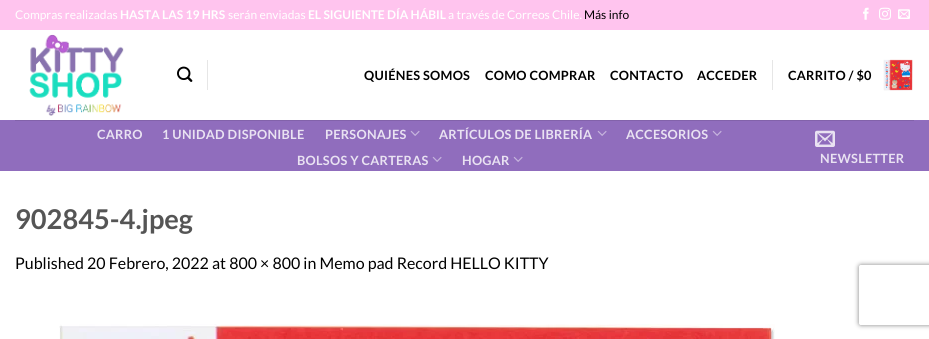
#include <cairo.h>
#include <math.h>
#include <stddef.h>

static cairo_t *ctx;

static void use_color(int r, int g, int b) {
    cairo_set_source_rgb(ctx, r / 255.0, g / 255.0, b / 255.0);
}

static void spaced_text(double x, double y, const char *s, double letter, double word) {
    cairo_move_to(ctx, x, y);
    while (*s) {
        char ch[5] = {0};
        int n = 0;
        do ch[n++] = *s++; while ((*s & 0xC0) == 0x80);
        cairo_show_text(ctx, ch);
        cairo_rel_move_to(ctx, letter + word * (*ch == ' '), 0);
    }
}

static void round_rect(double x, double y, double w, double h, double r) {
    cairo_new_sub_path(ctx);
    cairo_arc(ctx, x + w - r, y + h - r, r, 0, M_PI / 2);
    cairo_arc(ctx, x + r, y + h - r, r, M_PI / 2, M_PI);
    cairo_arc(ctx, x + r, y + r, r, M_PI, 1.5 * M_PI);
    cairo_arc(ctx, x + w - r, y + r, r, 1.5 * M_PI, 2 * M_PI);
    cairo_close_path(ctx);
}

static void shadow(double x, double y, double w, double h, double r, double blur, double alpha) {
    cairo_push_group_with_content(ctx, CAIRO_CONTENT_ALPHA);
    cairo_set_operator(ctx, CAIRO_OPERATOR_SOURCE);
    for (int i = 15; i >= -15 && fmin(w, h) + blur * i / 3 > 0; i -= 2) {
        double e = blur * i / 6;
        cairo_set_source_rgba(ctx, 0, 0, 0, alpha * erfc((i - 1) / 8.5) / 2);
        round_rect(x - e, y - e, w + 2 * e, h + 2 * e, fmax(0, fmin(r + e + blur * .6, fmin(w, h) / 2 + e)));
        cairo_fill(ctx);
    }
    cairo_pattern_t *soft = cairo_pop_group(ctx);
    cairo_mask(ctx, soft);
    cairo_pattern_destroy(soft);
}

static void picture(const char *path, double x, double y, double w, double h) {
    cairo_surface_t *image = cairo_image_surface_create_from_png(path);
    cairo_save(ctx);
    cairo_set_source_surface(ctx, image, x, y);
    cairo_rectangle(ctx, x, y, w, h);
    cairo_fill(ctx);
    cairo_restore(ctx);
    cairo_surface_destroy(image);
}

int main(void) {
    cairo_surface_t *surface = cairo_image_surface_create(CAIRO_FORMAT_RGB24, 929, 339);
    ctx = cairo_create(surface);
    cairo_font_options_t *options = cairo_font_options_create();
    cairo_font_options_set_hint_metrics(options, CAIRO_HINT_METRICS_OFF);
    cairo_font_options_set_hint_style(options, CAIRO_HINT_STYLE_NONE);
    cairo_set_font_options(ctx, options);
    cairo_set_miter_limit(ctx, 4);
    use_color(255, 255, 255);
    cairo_paint(ctx);
    use_color(255, 196, 238);
    cairo_rectangle(ctx, 0, 0, 929, 30);
    cairo_fill(ctx);
    cairo_select_font_face(ctx, "Lato", CAIRO_FONT_SLANT_NORMAL, CAIRO_FONT_WEIGHT_NORMAL);
    cairo_set_font_size(ctx, 12);
    use_color(255, 255, 255);
    cairo_move_to(ctx, 15, 19);
    cairo_show_text(ctx, "Compras realizadas");
    cairo_select_font_face(ctx, "Lato", CAIRO_FONT_SLANT_NORMAL, CAIRO_FONT_WEIGHT_BOLD);
    cairo_move_to(ctx, 120, 19);
    cairo_show_text(ctx, "HASTA LAS 19 HRS");
    cairo_select_font_face(ctx, "Lato", CAIRO_FONT_SLANT_NORMAL, CAIRO_FONT_WEIGHT_NORMAL);
    cairo_move_to(ctx, 228, 19);
    cairo_show_text(ctx, "serán enviadas");
    cairo_select_font_face(ctx, "Lato", CAIRO_FONT_SLANT_NORMAL, CAIRO_FONT_WEIGHT_BOLD);
    cairo_move_to(ctx, 308, 19);
    cairo_show_text(ctx, "EL SIGUIENTE DÍA HÁBIL");
    cairo_select_font_face(ctx, "Lato", CAIRO_FONT_SLANT_NORMAL, CAIRO_FONT_WEIGHT_NORMAL);
    cairo_move_to(ctx, 448, 19);
    cairo_show_text(ctx, "a través de Correos Chile.");
    use_color(0, 0, 0);
    cairo_move_to(ctx, 584, 19);
    cairo_show_text(ctx, "Más info");
    picture("img1.png", 863, 7, 6, 13);
    picture("img2.png", 879, 7, 12, 13);
    picture("img3.png", 898, 9, 12, 10);
    picture("img4.png", 29, 34, 95, 82);
    picture("img5.png", 177, 66, 16, 16);
    use_color(230, 230, 230);
    cairo_rectangle(ctx, 207, 60, 1, 30);
    cairo_fill(ctx);
    cairo_select_font_face(ctx, "Lato", CAIRO_FONT_SLANT_NORMAL, CAIRO_FONT_WEIGHT_BOLD);
    cairo_set_font_size(ctx, 12.75);
    use_color(0, 0, 0);
    spaced_text(364, 80, "QUIÉNES SOMOS", 0.25, 0);
    spaced_text(485, 80, "COMO COMPRAR", 0.25, 0);
    spaced_text(610, 80, "CONTACTO", 0.25, 0);
    spaced_text(697, 80, "ACCEDER", 0.25, 0);
    use_color(230, 230, 230);
    cairo_rectangle(ctx, 772, 60, 1, 30);
    cairo_fill(ctx);
    use_color(0, 0, 0);
    spaced_text(788, 80, "CARRITO / $0", 0.25, 0);
    picture("img6.png", 883, 59, 30, 32);
    use_color(144, 109, 189);
    cairo_rectangle(ctx, 0, 120, 929, 51);
    cairo_fill(ctx);
    use_color(130, 98, 170);
    cairo_rectangle(ctx, 15, 120, 899, 1);
    cairo_fill(ctx);
    use_color(233, 226, 242);
    spaced_text(97, 139, "CARRO", 0.25, 0);
    spaced_text(162, 139, "1 UNIDAD DISPONIBLE", 0.25, 0);
    spaced_text(325, 139, "PERSONAJES", 0.25, 0);
    picture("img7.png", 410, 130, 10, 6);
    spaced_text(439, 139, "ARTÍCULOS DE LIBRERÍA", 0.25, 0);
    picture("img7.png", 597, 130, 10, 6);
    spaced_text(626, 139, "ACCESORIOS", 0.25, 0);
    picture("img7.png", 712, 130, 10, 6);
    spaced_text(297, 165, "BOLSOS Y CARTERAS", 0.25, 0);
    picture("img7.png", 432, 156, 10, 6);
    spaced_text(462, 165, "HOGAR", 0.25, 0);
    picture("img7.png", 513, 156, 10, 6);
    picture("img8.png", 815, 130, 20, 17);
    spaced_text(820, 163, "NEWSLETTER", 0.25, 0);
    cairo_set_font_size(ctx, 27.25);
    use_color(85, 85, 85);
    cairo_move_to(ctx, 15, 229);
    cairo_show_text(ctx, "902845-4.jpeg");
    cairo_select_font_face(ctx, "Lato", CAIRO_FONT_SLANT_NORMAL, CAIRO_FONT_WEIGHT_NORMAL);
    cairo_set_font_size(ctx, 16);
    use_color(0, 0, 0);
    cairo_move_to(ctx, 15, 269);
    cairo_show_text(ctx, "Published 20 Febrero, 2022 at 800 × 800 in Memo pad Record HELLO KITTY");
    picture("img9.png", 59, 324, 716, 15);
    cairo_save(ctx);
    cairo_set_fill_rule(ctx, CAIRO_FILL_RULE_EVEN_ODD);
    cairo_new_path(ctx);
    cairo_move_to(ctx, 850, 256);
    cairo_line_to(ctx, 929, 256);
    cairo_line_to(ctx, 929, 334);
    cairo_line_to(ctx, 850, 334);
    cairo_close_path(ctx);
    cairo_move_to(ctx, 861, 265);
    cairo_line_to(ctx, 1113, 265);
    cairo_curve_to(ctx, 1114, 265, 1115, 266, 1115, 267);
    cairo_line_to(ctx, 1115, 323);
    cairo_curve_to(ctx, 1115, 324, 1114, 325, 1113, 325);
    cairo_line_to(ctx, 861, 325);
    cairo_curve_to(ctx, 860, 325, 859, 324, 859, 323);
    cairo_line_to(ctx, 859, 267);
    cairo_curve_to(ctx, 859, 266, 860, 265, 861, 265);
    cairo_close_path(ctx);
    cairo_clip(ctx);
    use_color(128, 128, 128);
    shadow(859, 265, 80, 60, 2, 2.5, 1);
    cairo_restore(ctx);
    cairo_surface_write_to_png(surface, "result.png");
    cairo_font_options_destroy(options);
    cairo_destroy(ctx);
    cairo_surface_destroy(surface);
    return 0;
}
